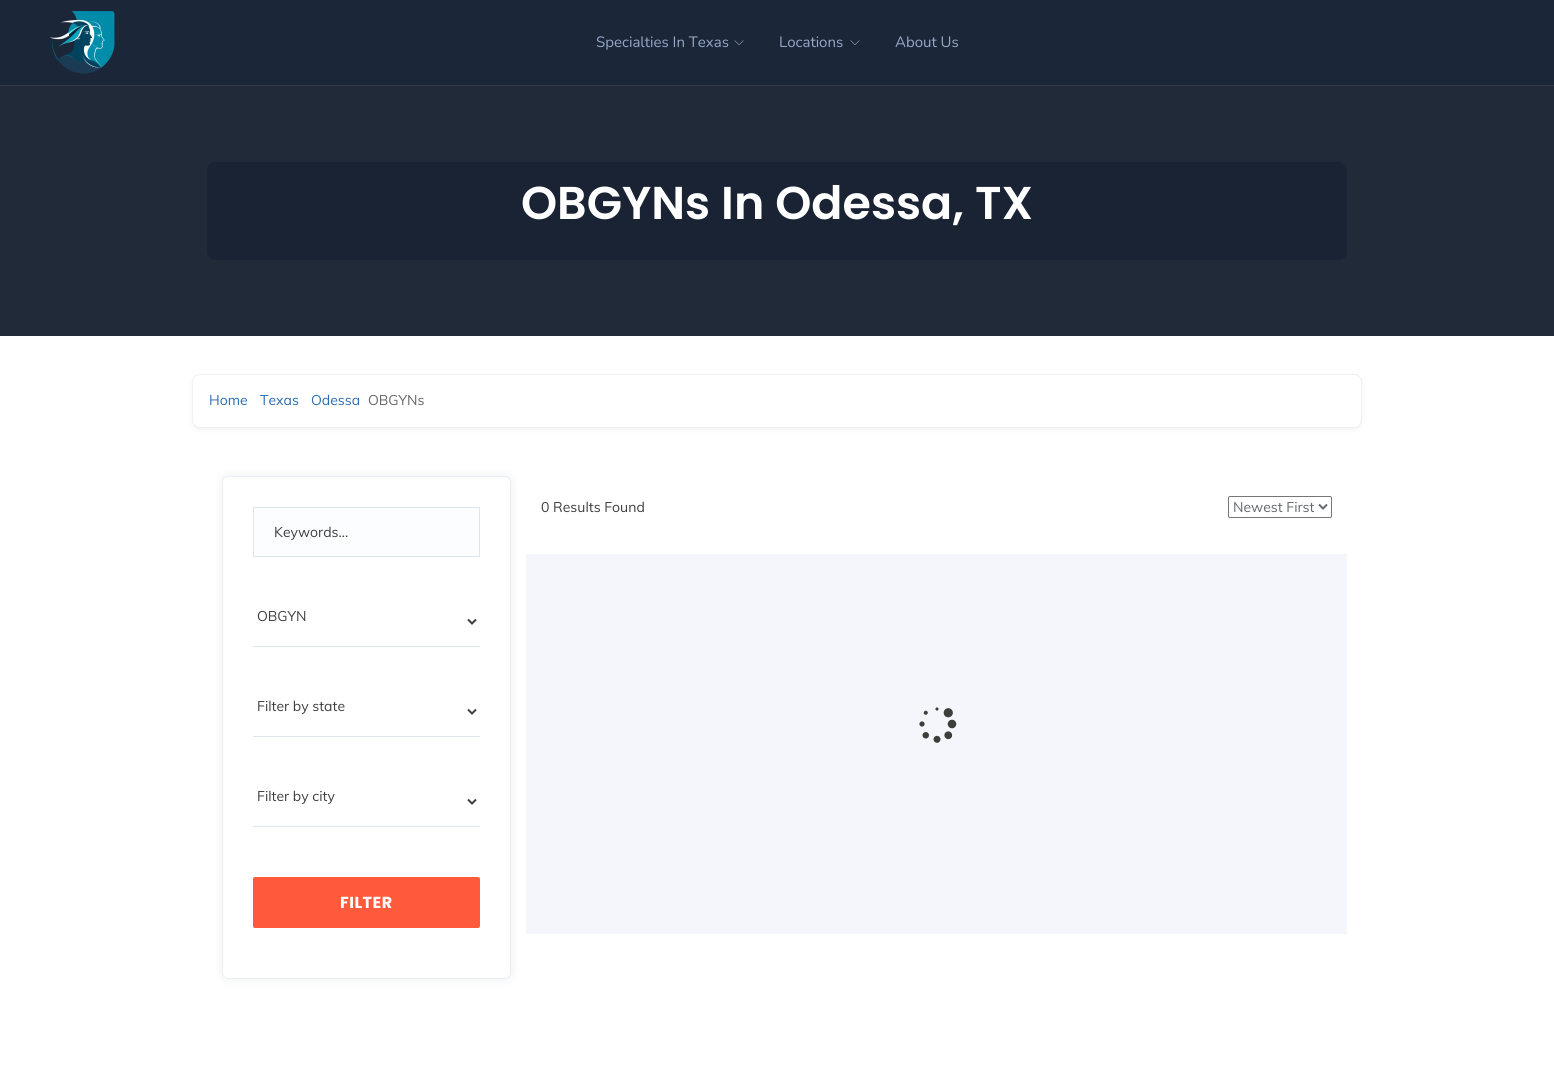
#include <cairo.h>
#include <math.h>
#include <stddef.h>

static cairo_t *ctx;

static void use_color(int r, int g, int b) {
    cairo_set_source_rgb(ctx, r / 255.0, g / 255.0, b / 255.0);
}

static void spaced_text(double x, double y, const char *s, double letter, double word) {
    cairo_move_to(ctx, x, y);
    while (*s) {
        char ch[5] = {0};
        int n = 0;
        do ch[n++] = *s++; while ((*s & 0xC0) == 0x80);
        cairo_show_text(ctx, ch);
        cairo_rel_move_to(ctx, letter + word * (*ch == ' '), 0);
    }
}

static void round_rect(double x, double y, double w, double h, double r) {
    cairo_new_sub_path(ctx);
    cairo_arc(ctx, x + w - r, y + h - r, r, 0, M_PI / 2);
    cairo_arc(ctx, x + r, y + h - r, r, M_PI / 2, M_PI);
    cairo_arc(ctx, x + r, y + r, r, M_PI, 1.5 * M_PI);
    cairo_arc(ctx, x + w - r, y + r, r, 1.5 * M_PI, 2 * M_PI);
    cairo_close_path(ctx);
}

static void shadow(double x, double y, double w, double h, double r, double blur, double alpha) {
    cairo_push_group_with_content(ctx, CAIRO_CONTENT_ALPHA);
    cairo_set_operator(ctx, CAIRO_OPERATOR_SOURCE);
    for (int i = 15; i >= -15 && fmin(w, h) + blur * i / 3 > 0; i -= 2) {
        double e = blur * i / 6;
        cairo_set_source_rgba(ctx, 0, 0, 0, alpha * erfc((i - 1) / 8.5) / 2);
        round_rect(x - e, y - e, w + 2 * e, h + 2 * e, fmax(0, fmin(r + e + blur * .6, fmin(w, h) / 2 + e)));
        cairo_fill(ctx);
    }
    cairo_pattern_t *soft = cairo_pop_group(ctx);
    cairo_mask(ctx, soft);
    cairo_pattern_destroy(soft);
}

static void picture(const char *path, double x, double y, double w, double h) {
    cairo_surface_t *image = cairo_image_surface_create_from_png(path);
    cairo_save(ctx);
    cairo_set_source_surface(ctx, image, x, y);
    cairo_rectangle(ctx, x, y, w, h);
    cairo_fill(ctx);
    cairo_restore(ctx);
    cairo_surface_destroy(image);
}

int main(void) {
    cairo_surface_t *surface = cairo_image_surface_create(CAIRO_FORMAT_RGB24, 1554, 1084);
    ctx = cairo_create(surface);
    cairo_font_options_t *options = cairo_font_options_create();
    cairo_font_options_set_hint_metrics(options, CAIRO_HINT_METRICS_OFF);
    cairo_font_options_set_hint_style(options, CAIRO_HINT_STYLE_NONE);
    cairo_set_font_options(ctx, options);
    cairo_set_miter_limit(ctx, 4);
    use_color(255, 255, 255);
    cairo_paint(ctx);
    use_color(27, 38, 57);
    cairo_rectangle(ctx, 0, 0, 1554, 85);
    cairo_fill(ctx);
    use_color(50, 60, 77);
    cairo_rectangle(ctx, 0, 85, 1554, 1);
    cairo_fill(ctx);
    picture("img1.png", 50, 11, 65, 63);
    cairo_select_font_face(ctx, "Nunito ExtraLight", CAIRO_FONT_SLANT_NORMAL, CAIRO_FONT_WEIGHT_NORMAL);
    cairo_set_font_size(ctx, 15);
    use_color(149, 167, 197);
    cairo_move_to(ctx, 596, 47);
    cairo_show_text(ctx, "Specialties In Texas");
    picture("img2.png", 734, 40, 10, 5);
    cairo_move_to(ctx, 779, 47);
    cairo_show_text(ctx, "Locations");
    picture("img2.png", 850, 40, 10, 5);
    cairo_move_to(ctx, 895, 47);
    cairo_show_text(ctx, "About Us");
    use_color(33, 42, 57);
    cairo_rectangle(ctx, 0, 86, 1554, 250);
    cairo_fill(ctx);
    use_color(26, 35, 51);
    round_rect(207, 162, 1140, 98, 8);
    cairo_fill(ctx);
    cairo_select_font_face(ctx, "Poppins SemiBold", CAIRO_FONT_SLANT_NORMAL, CAIRO_FONT_WEIGHT_NORMAL);
    cairo_set_font_size(ctx, 46);
    use_color(255, 255, 255);
    cairo_move_to(ctx, 521, 219);
    cairo_show_text(ctx, "OBGYNs In Odessa, TX");
    use_color(0, 0, 0);
    shadow(192, 376, 1170, 54, 8, 2.5, 0.05);
    use_color(255, 255, 255);
    round_rect(192.5, 374.5, 1169, 53, 7.5);
    cairo_fill_preserve(ctx);
    use_color(240, 240, 240);
    cairo_set_line_width(ctx, 1);
    cairo_stroke(ctx);
    cairo_select_font_face(ctx, "Muli", CAIRO_FONT_SLANT_NORMAL, CAIRO_FONT_WEIGHT_NORMAL);
    cairo_set_font_size(ctx, 14);
    use_color(43, 108, 176);
    cairo_move_to(ctx, 209, 405);
    cairo_show_text(ctx, "Home");
    cairo_move_to(ctx, 260, 405);
    cairo_show_text(ctx, "Texas");
    cairo_move_to(ctx, 311, 405);
    cairo_show_text(ctx, "Odessa");
    use_color(102, 102, 102);
    cairo_move_to(ctx, 368, 405);
    cairo_show_text(ctx, "OBGYNs");
    use_color(62, 62, 62);
    cairo_move_to(ctx, 541, 512);
    cairo_show_text(ctx, "0 Results Found");
    round_rect(1228.5, 496.5, 103, 21, 1.5);
    use_color(118, 118, 118);
    cairo_stroke(ctx);
    cairo_new_path(ctx);
    cairo_move_to(ctx, 1319, 504.5);
    cairo_line_to(ctx, 1323, 508.5);
    cairo_line_to(ctx, 1327, 504.5);
    use_color(98, 106, 112);
    cairo_set_line_width(ctx, 2);
    cairo_stroke(ctx);
    cairo_move_to(ctx, 1233, 512);
    cairo_show_text(ctx, "Newest First");
    use_color(71, 85, 95);
    shadow(221, 475, 291, 505, 7, 5, 0.08);
    use_color(245, 246, 252);
    cairo_rectangle(ctx, 526, 554, 821, 380);
    cairo_fill(ctx);
    picture("img3.png", 919, 707, 38, 36);
    use_color(255, 255, 255);
    round_rect(222.5, 476.5, 288, 502, 5.5);
    cairo_fill_preserve(ctx);
    use_color(234, 239, 245);
    cairo_set_line_width(ctx, 1);
    cairo_stroke(ctx);
    use_color(251, 253, 255);
    cairo_rectangle(ctx, 253.5, 507.5, 226, 49);
    cairo_fill_preserve(ctx);
    use_color(221, 230, 239);
    cairo_stroke(ctx);
    use_color(62, 62, 62);
    cairo_move_to(ctx, 274, 537);
    cairo_show_text(ctx, "Keywords...");
    use_color(221, 230, 239);
    cairo_rectangle(ctx, 253, 646, 227, 1);
    cairo_fill(ctx);
    cairo_new_path(ctx);
    cairo_move_to(ctx, 468, 619.5);
    cairo_line_to(ctx, 472, 623.5);
    cairo_line_to(ctx, 476, 619.5);
    use_color(62, 62, 62);
    cairo_set_line_width(ctx, 2);
    cairo_stroke(ctx);
    cairo_move_to(ctx, 257, 621);
    cairo_show_text(ctx, "OBGYN");
    use_color(221, 230, 239);
    cairo_rectangle(ctx, 253, 736, 227, 1);
    cairo_fill(ctx);
    cairo_new_path(ctx);
    cairo_move_to(ctx, 468, 709.5);
    cairo_line_to(ctx, 472, 713.5);
    cairo_line_to(ctx, 476, 709.5);
    use_color(62, 62, 62);
    cairo_stroke(ctx);
    cairo_move_to(ctx, 257, 711);
    cairo_show_text(ctx, "Filter by state");
    use_color(221, 230, 239);
    cairo_rectangle(ctx, 253, 826, 227, 1);
    cairo_fill(ctx);
    cairo_new_path(ctx);
    cairo_move_to(ctx, 468, 799.5);
    cairo_line_to(ctx, 472, 803.5);
    cairo_line_to(ctx, 476, 799.5);
    use_color(62, 62, 62);
    cairo_stroke(ctx);
    cairo_move_to(ctx, 257, 801);
    cairo_show_text(ctx, "Filter by city");
    use_color(255, 90, 60);
    round_rect(253, 877, 227, 51, 2);
    cairo_fill(ctx);
    cairo_select_font_face(ctx, "Poppins", CAIRO_FONT_SLANT_NORMAL, CAIRO_FONT_WEIGHT_BOLD);
    cairo_set_font_size(ctx, 16);
    use_color(255, 255, 255);
    spaced_text(340, 908, "FILTER", 0.5, 0);
    cairo_surface_write_to_png(surface, "result.png");
    cairo_font_options_destroy(options);
    cairo_destroy(ctx);
    cairo_surface_destroy(surface);
    return 0;
}
